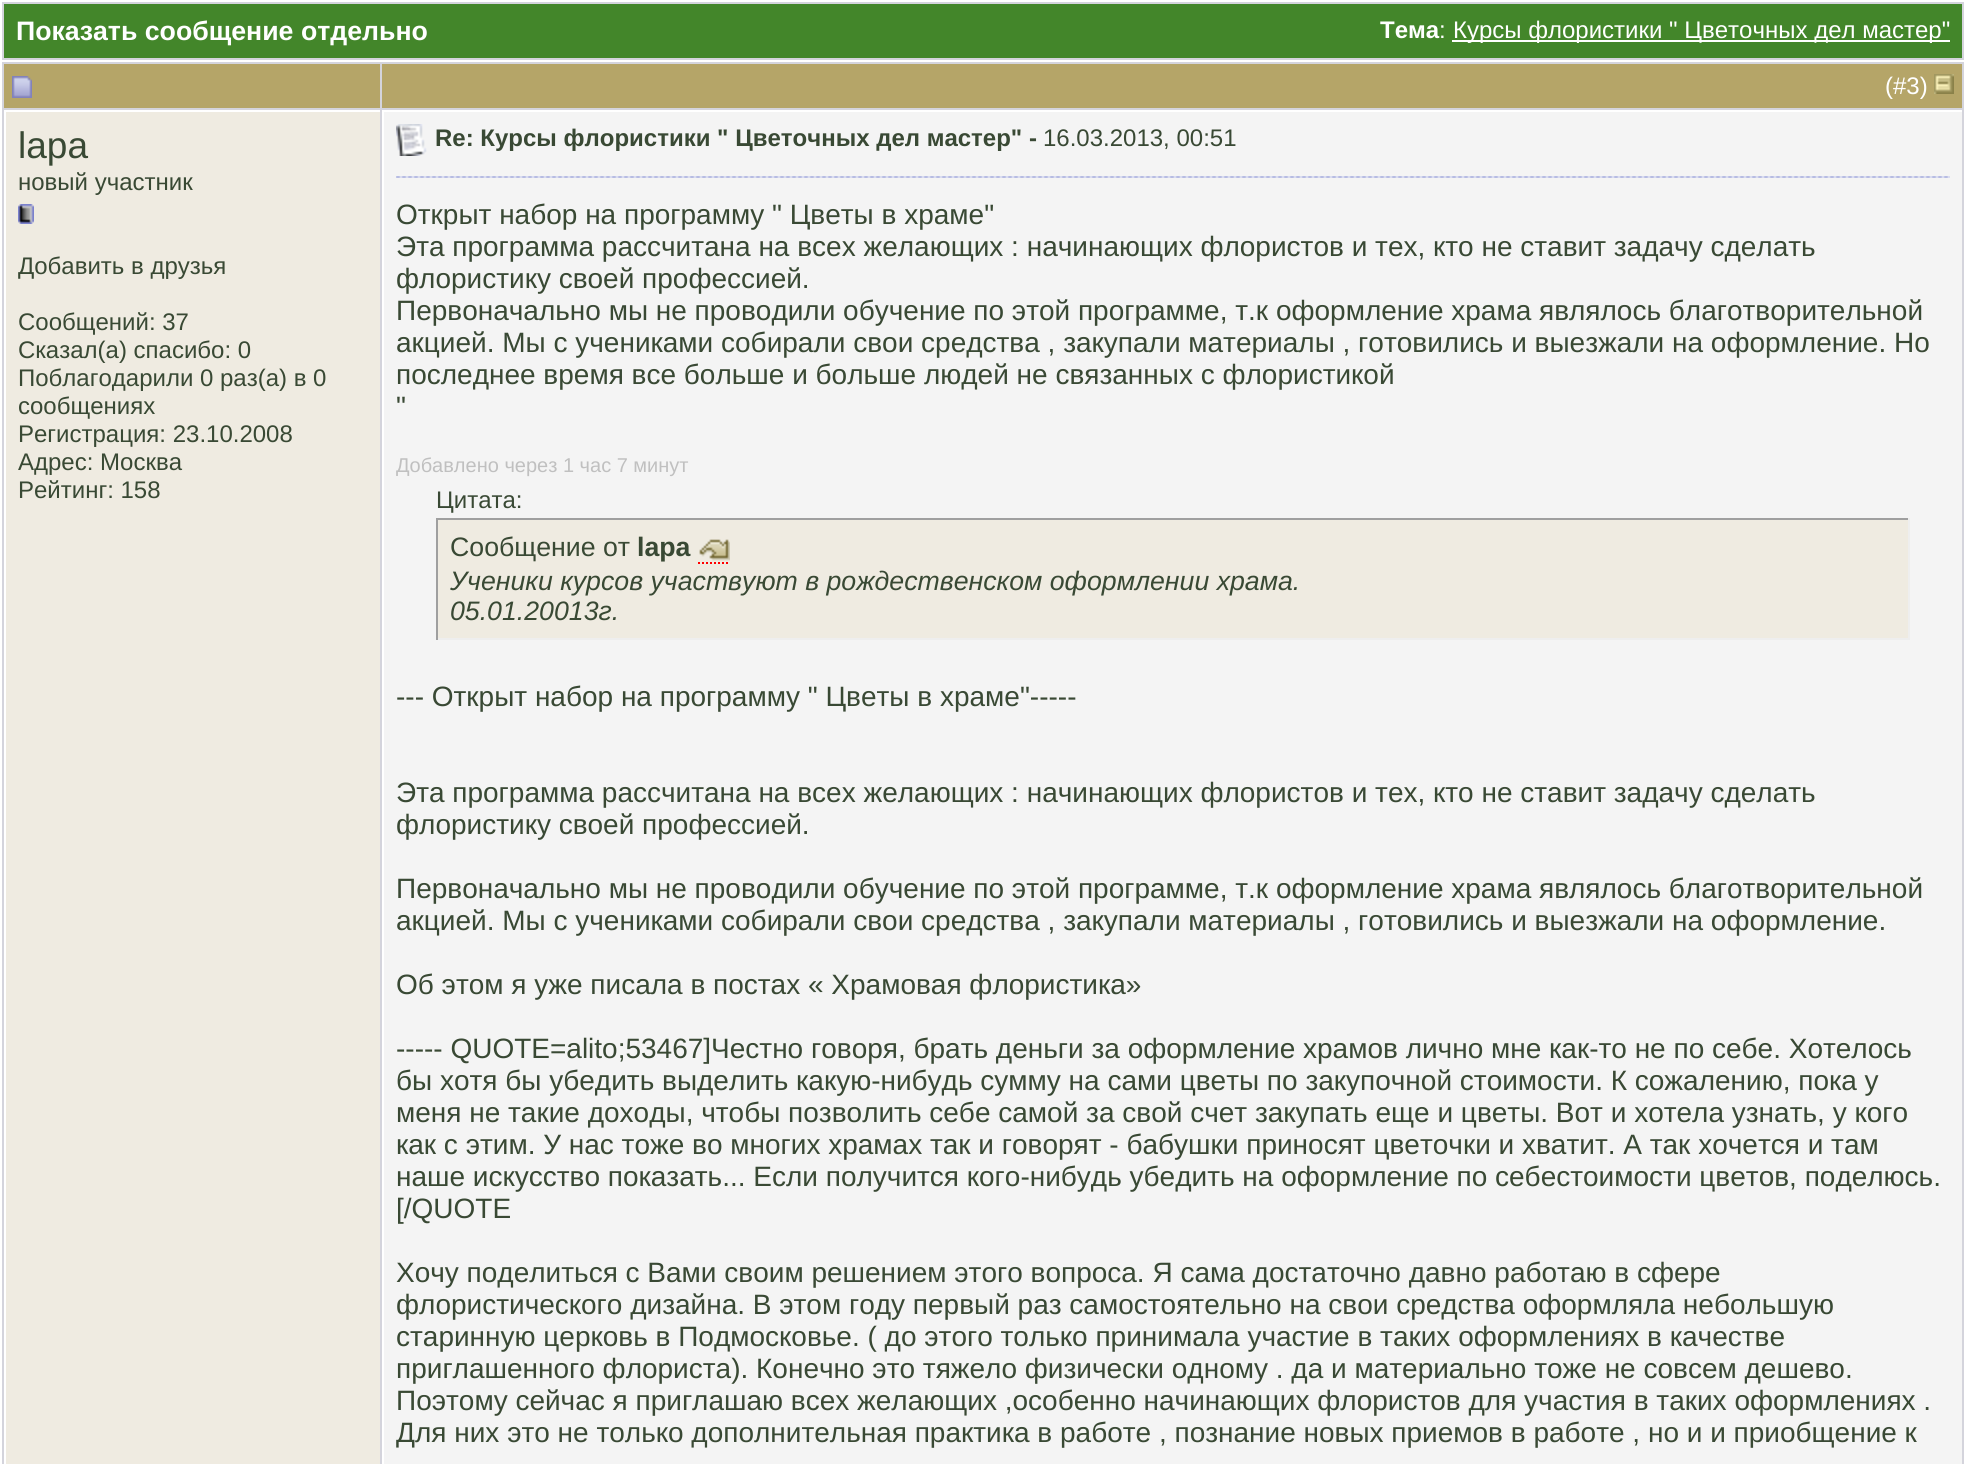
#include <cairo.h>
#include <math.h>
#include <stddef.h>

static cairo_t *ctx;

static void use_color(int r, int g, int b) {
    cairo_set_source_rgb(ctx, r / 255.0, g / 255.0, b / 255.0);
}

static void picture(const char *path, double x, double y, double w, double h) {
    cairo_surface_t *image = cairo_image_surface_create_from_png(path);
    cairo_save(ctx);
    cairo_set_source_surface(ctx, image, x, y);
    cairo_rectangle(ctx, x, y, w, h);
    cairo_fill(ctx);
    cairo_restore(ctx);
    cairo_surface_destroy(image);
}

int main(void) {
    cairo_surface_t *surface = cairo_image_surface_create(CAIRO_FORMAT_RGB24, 1966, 1464);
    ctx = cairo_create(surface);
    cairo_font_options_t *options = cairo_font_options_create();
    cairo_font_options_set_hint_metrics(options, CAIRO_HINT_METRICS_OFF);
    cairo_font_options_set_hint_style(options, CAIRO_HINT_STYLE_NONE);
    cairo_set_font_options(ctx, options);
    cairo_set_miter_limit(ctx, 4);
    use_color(255, 255, 255);
    cairo_paint(ctx);
    use_color(212, 212, 220);
    cairo_rectangle(ctx, 2, 2, 1962, 58);
    cairo_fill(ctx);
    use_color(67, 134, 42);
    cairo_rectangle(ctx, 4, 4, 1958, 54);
    cairo_fill(ctx);
    cairo_select_font_face(ctx, "Liberation Sans", CAIRO_FONT_SLANT_NORMAL, CAIRO_FONT_WEIGHT_BOLD);
    cairo_set_font_size(ctx, 26.7);
    use_color(255, 255, 255);
    cairo_move_to(ctx, 16, 40);
    cairo_show_text(ctx, "Показать сообщение отдельно");
    cairo_set_font_size(ctx, 24);
    cairo_move_to(ctx, 1380, 38);
    cairo_show_text(ctx, "Тема");
    cairo_select_font_face(ctx, "Liberation Sans", CAIRO_FONT_SLANT_NORMAL, CAIRO_FONT_WEIGHT_NORMAL);
    cairo_move_to(ctx, 1439, 38);
    cairo_show_text(ctx, ":");
    cairo_rectangle(ctx, 1452, 40, 498, 2);
    cairo_fill(ctx);
    cairo_move_to(ctx, 1453, 38);
    cairo_show_text(ctx, "Курсы флористики \" Цветочных дел мастер\"");
    use_color(212, 212, 220);
    cairo_rectangle(ctx, 2, 62, 1962, 1402);
    cairo_fill(ctx);
    use_color(181, 165, 104);
    cairo_rectangle(ctx, 4, 64, 376, 44);
    cairo_fill(ctx);
    picture("img1.png", 12, 76, 20, 22);
    cairo_rectangle(ctx, 382, 64, 1580, 44);
    cairo_fill(ctx);
    use_color(255, 255, 255);
    cairo_move_to(ctx, 1885, 94);
    cairo_show_text(ctx, "(#3)");
    picture("img2.png", 1934, 74, 20, 20);
    use_color(239, 235, 225);
    cairo_rectangle(ctx, 6, 112, 374, 1352);
    cairo_fill(ctx);
    use_color(255, 255, 255);
    cairo_rectangle(ctx, 4, 110, 376, 2);
    cairo_fill(ctx);
    cairo_rectangle(ctx, 4, 110, 2, 1354);
    cairo_fill(ctx);
    cairo_set_font_size(ctx, 37);
    use_color(57, 73, 52);
    cairo_move_to(ctx, 18, 158);
    cairo_show_text(ctx, "lapa");
    cairo_set_font_size(ctx, 24);
    cairo_move_to(ctx, 18, 190);
    cairo_show_text(ctx, "новый участник");
    picture("img3.png", 18, 204, 16, 20);
    cairo_move_to(ctx, 18, 274);
    cairo_show_text(ctx, "Добавить в друзья");
    cairo_move_to(ctx, 18, 330);
    cairo_show_text(ctx, "Сообщений: 37");
    cairo_move_to(ctx, 18, 358);
    cairo_show_text(ctx, "Сказал(а) спасибо: 0");
    cairo_move_to(ctx, 18, 386);
    cairo_show_text(ctx, "Поблагодарили 0 раз(а) в 0");
    cairo_move_to(ctx, 18, 414);
    cairo_show_text(ctx, "сообщениях");
    cairo_move_to(ctx, 18, 442);
    cairo_show_text(ctx, "Регистрация: 23.10.2008");
    cairo_move_to(ctx, 18, 470);
    cairo_show_text(ctx, "Адрес: Москва");
    cairo_move_to(ctx, 18, 498);
    cairo_show_text(ctx, "Рейтинг: 158");
    use_color(244, 244, 244);
    cairo_rectangle(ctx, 384, 112, 1578, 1352);
    cairo_fill(ctx);
    use_color(255, 255, 255);
    cairo_rectangle(ctx, 382, 110, 1580, 2);
    cairo_fill(ctx);
    cairo_rectangle(ctx, 382, 110, 2, 1354);
    cairo_fill(ctx);
    picture("img4.png", 396, 124, 31, 32);
    cairo_select_font_face(ctx, "Liberation Sans", CAIRO_FONT_SLANT_NORMAL, CAIRO_FONT_WEIGHT_BOLD);
    use_color(57, 73, 52);
    cairo_move_to(ctx, 435, 146);
    cairo_show_text(ctx, "Re: Курсы флористики \" Цветочных дел мастер\" -");
    cairo_select_font_face(ctx, "Liberation Sans", CAIRO_FONT_SLANT_NORMAL, CAIRO_FONT_WEIGHT_NORMAL);
    cairo_move_to(ctx, 1043, 146);
    cairo_show_text(ctx, "16.03.2013, 00:51");
    picture("img5.png", 396, 176, 1554, 2);
    cairo_set_font_size(ctx, 28);
    cairo_move_to(ctx, 396, 224);
    cairo_show_text(ctx, "Открыт набор на программу \" Цветы в храме\"");
    cairo_move_to(ctx, 396, 256);
    cairo_show_text(ctx, "Эта программа рассчитана на всех желающих : начинающих флористов и тех, кто не ставит задачу сделать");
    cairo_move_to(ctx, 396, 288);
    cairo_show_text(ctx, "флористику своей профессией.");
    cairo_move_to(ctx, 396, 320);
    cairo_show_text(ctx, "Первоначально мы не проводили обучение по этой программе, т.к оформление храма являлось благотворительной");
    cairo_move_to(ctx, 396, 352);
    cairo_show_text(ctx, "акцией. Мы с учениками собирали свои средства , закупали материалы , готовились и выезжали на оформление. Но");
    cairo_move_to(ctx, 396, 384);
    cairo_show_text(ctx, "последнее время все больше и больше людей не связанных с флористикой");
    cairo_move_to(ctx, 396, 416);
    cairo_show_text(ctx, "\"");
    cairo_set_font_size(ctx, 20);
    use_color(192, 192, 192);
    cairo_move_to(ctx, 396, 472);
    cairo_show_text(ctx, "Добавлено через 1 час 7 минут");
    cairo_set_font_size(ctx, 24);
    use_color(57, 73, 52);
    cairo_move_to(ctx, 436, 508);
    cairo_show_text(ctx, "Цитата:");
    use_color(239, 235, 225);
    cairo_rectangle(ctx, 438, 520, 1470, 118);
    cairo_fill(ctx);
    use_color(159, 159, 159);
    cairo_rectangle(ctx, 436, 518, 1474, 2);
    cairo_fill(ctx);
    use_color(238, 238, 238);
    cairo_rectangle(ctx, 1908, 518, 2, 122);
    cairo_fill(ctx);
    cairo_rectangle(ctx, 436, 638, 1474, 2);
    cairo_fill(ctx);
    use_color(159, 159, 159);
    cairo_rectangle(ctx, 436, 518, 2, 122);
    cairo_fill(ctx);
    cairo_set_font_size(ctx, 26.7);
    use_color(57, 73, 52);
    cairo_move_to(ctx, 450, 556);
    cairo_show_text(ctx, "Сообщение от");
    cairo_select_font_face(ctx, "Liberation Sans", CAIRO_FONT_SLANT_NORMAL, CAIRO_FONT_WEIGHT_BOLD);
    cairo_move_to(ctx, 637, 556);
    cairo_show_text(ctx, "lapa");
    picture("img6.png", 699, 539, 31, 22);
    cairo_new_path(ctx);
    cairo_move_to(ctx, 698, 563);
    cairo_line_to(ctx, 730, 563);
    use_color(255, 0, 0);
    cairo_set_dash(ctx, (double[]){2, 2}, 2, 0);
    cairo_stroke(ctx);
    cairo_select_font_face(ctx, "Liberation Sans", CAIRO_FONT_SLANT_ITALIC, CAIRO_FONT_WEIGHT_NORMAL);
    use_color(57, 73, 52);
    cairo_move_to(ctx, 450, 590);
    cairo_show_text(ctx, "Ученики курсов участвуют в рождественском оформлении храма.");
    cairo_move_to(ctx, 450, 620);
    cairo_show_text(ctx, "05.01.20013г.");
    cairo_select_font_face(ctx, "Liberation Sans", CAIRO_FONT_SLANT_NORMAL, CAIRO_FONT_WEIGHT_NORMAL);
    cairo_set_font_size(ctx, 28);
    cairo_move_to(ctx, 396, 706);
    cairo_show_text(ctx, "--- Открыт набор на программу \" Цветы в храме\"-----");
    cairo_move_to(ctx, 396, 802);
    cairo_show_text(ctx, "Эта программа рассчитана на всех желающих : начинающих флористов и тех, кто не ставит задачу сделать");
    cairo_move_to(ctx, 396, 834);
    cairo_show_text(ctx, "флористику своей профессией.");
    cairo_move_to(ctx, 396, 898);
    cairo_show_text(ctx, "Первоначально мы не проводили обучение по этой программе, т.к оформление храма являлось благотворительной");
    cairo_move_to(ctx, 396, 930);
    cairo_show_text(ctx, "акцией. Мы с учениками собирали свои средства , закупали материалы , готовились и выезжали на оформление.");
    cairo_move_to(ctx, 396, 994);
    cairo_show_text(ctx, "Об этом я уже писала в постах « Храмовая флористика»");
    cairo_move_to(ctx, 396, 1058);
    cairo_show_text(ctx, "----- QUOTE=alito;53467]Честно говоря, брать деньги за оформление храмов лично мне как-то не по себе. Хотелось");
    cairo_move_to(ctx, 396, 1090);
    cairo_show_text(ctx, "бы хотя бы убедить выделить какую-нибудь сумму на сами цветы по закупочной стоимости. К сожалению, пока у");
    cairo_move_to(ctx, 396, 1122);
    cairo_show_text(ctx, "меня не такие доходы, чтобы позволить себе самой за свой счет закупать еще и цветы. Вот и хотела узнать, у кого");
    cairo_move_to(ctx, 396, 1154);
    cairo_show_text(ctx, "как с этим. У нас тоже во многих храмах так и говорят - бабушки приносят цветочки и хватит. А так хочется и там");
    cairo_move_to(ctx, 396, 1186);
    cairo_show_text(ctx, "наше искусство показать... Если получится кого-нибудь убедить на оформление по себестоимости цветов, поделюсь.");
    cairo_move_to(ctx, 396, 1218);
    cairo_show_text(ctx, "[/QUOTE");
    cairo_move_to(ctx, 396, 1282);
    cairo_show_text(ctx, "Хочу поделиться с Вами своим решением этого вопроса. Я сама достаточно давно работаю в сфере");
    cairo_move_to(ctx, 396, 1314);
    cairo_show_text(ctx, "флористического дизайна. В этом году первый раз самостоятельно на свои средства оформляла небольшую");
    cairo_move_to(ctx, 396, 1346);
    cairo_show_text(ctx, "старинную церковь в Подмосковье. ( до этого только принимала участие в таких оформлениях в качестве");
    cairo_move_to(ctx, 396, 1378);
    cairo_show_text(ctx, "приглашенного флориста). Конечно это тяжело физически одному . да и материально тоже не совсем дешево.");
    cairo_move_to(ctx, 396, 1410);
    cairo_show_text(ctx, "Поэтому сейчас я приглашаю всех желающих ,особенно начинающих флористов для участия в таких оформлениях .");
    cairo_move_to(ctx, 396, 1442);
    cairo_show_text(ctx, "Для них это не только дополнительная практика в работе , познание новых приемов в работе , но и и приобщение к");
    cairo_surface_write_to_png(surface, "result.png");
    cairo_font_options_destroy(options);
    cairo_destroy(ctx);
    cairo_surface_destroy(surface);
    return 0;
}
